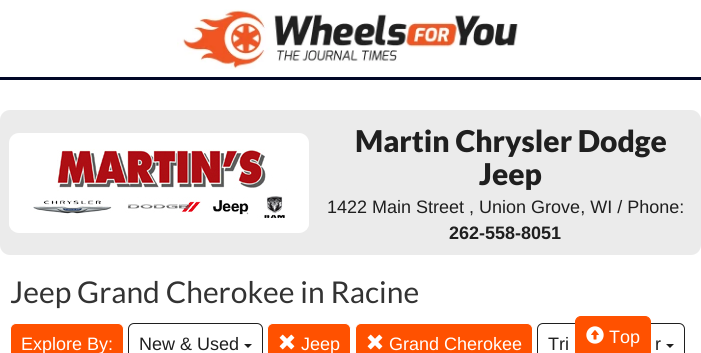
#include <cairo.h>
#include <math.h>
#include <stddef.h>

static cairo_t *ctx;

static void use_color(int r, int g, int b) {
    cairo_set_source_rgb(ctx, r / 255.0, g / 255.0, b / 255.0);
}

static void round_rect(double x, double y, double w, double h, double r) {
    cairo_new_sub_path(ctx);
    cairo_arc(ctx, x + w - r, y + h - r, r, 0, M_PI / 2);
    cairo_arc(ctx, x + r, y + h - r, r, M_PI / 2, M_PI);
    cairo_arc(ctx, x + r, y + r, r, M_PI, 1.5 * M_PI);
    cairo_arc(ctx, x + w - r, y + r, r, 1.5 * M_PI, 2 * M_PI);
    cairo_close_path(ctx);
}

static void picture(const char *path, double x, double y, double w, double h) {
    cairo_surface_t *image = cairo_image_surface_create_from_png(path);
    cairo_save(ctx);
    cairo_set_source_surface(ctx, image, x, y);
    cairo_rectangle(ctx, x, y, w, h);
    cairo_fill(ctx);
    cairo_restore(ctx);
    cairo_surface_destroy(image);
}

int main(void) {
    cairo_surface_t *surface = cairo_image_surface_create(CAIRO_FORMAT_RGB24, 701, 353);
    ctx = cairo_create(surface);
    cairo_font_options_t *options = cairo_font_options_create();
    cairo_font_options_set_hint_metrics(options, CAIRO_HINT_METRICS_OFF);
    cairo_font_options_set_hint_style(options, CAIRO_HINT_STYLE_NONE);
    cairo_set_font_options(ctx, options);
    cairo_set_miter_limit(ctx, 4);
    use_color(255, 255, 255);
    cairo_paint(ctx);
    use_color(1, 7, 39);
    cairo_rectangle(ctx, 0, 77, 701, 3);
    cairo_fill(ctx);
    picture("img1.png", 177, 9, 341, 60);
    use_color(235, 235, 235);
    round_rect(0, 110, 701, 145, 10);
    cairo_fill(ctx);
    use_color(255, 255, 255);
    round_rect(9, 133, 300, 100, 10);
    cairo_fill(ctx);
    picture("img2.png", 9, 149, 300, 81);
    cairo_select_font_face(ctx, "Lato Black", CAIRO_FONT_SLANT_NORMAL, CAIRO_FONT_WEIGHT_NORMAL);
    cairo_set_font_size(ctx, 30);
    use_color(31, 31, 31);
    cairo_move_to(ctx, 355, 152);
    cairo_show_text(ctx, "Martin Chrysler Dodge");
    cairo_move_to(ctx, 479, 185);
    cairo_show_text(ctx, "Jeep");
    cairo_select_font_face(ctx, "Liberation Sans", CAIRO_FONT_SLANT_NORMAL, CAIRO_FONT_WEIGHT_NORMAL);
    cairo_set_font_size(ctx, 18);
    cairo_move_to(ctx, 327, 213);
    cairo_show_text(ctx, "1422 Main Street , Union Grove, WI / Phone:");
    cairo_select_font_face(ctx, "Liberation Sans", CAIRO_FONT_SLANT_NORMAL, CAIRO_FONT_WEIGHT_BOLD);
    cairo_move_to(ctx, 449, 239);
    cairo_show_text(ctx, "262-558-8051");
    cairo_select_font_face(ctx, "Lato", CAIRO_FONT_SLANT_NORMAL, CAIRO_FONT_WEIGHT_NORMAL);
    cairo_set_font_size(ctx, 30);
    use_color(51, 51, 51);
    cairo_move_to(ctx, 10, 303);
    cairo_show_text(ctx, "Jeep Grand Cherokee in Racine");
    use_color(255, 81, 0);
    round_rect(10.5, 323.5, 113, 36, 5.5);
    cairo_fill_preserve(ctx);
    use_color(255, 255, 255);
    cairo_set_line_width(ctx, 1);
    cairo_stroke(ctx);
    cairo_select_font_face(ctx, "Liberation Sans", CAIRO_FONT_SLANT_NORMAL, CAIRO_FONT_WEIGHT_NORMAL);
    cairo_set_font_size(ctx, 18);
    cairo_move_to(ctx, 21, 350);
    cairo_show_text(ctx, "Explore By:");
    round_rect(128.5, 323.5, 134, 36, 5.5);
    use_color(31, 31, 31);
    cairo_stroke(ctx);
    cairo_move_to(ctx, 139, 350);
    cairo_show_text(ctx, "New & Used");
    cairo_new_path(ctx);
    cairo_move_to(ctx, 244, 344);
    cairo_line_to(ctx, 252, 344);
    cairo_line_to(ctx, 248, 348);
    cairo_close_path(ctx);
    cairo_fill(ctx);
    use_color(255, 81, 0);
    round_rect(267.5, 323.5, 83, 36, 5.5);
    cairo_fill_preserve(ctx);
    use_color(255, 255, 255);
    cairo_stroke(ctx);
    picture("img3.png", 279, 334, 16, 16);
    cairo_move_to(ctx, 301, 350);
    cairo_show_text(ctx, "Jeep");
    use_color(255, 81, 0);
    round_rect(355.5, 323.5, 177, 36, 5.5);
    cairo_fill_preserve(ctx);
    use_color(255, 255, 255);
    cairo_stroke(ctx);
    picture("img3.png", 367, 334, 16, 16);
    cairo_move_to(ctx, 389, 350);
    cairo_show_text(ctx, "Grand Cherokee");
    round_rect(537.5, 323.5, 70, 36, 5.5);
    use_color(31, 31, 31);
    cairo_stroke(ctx);
    cairo_move_to(ctx, 548, 350);
    cairo_show_text(ctx, "Tri");
    round_rect(612.5, 323.5, 72, 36, 5.5);
    cairo_stroke(ctx);
    cairo_move_to(ctx, 655, 350);
    cairo_show_text(ctx, "r");
    cairo_new_path(ctx);
    cairo_move_to(ctx, 666, 344);
    cairo_line_to(ctx, 674, 344);
    cairo_line_to(ctx, 670, 348);
    cairo_close_path(ctx);
    cairo_fill(ctx);
    use_color(255, 81, 0);
    round_rect(575.5, 316.5, 75, 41, 5.5);
    cairo_fill_preserve(ctx);
    cairo_stroke(ctx);
    picture("img4.png", 586, 326, 18, 18);
    use_color(255, 255, 255);
    cairo_move_to(ctx, 609, 343);
    cairo_show_text(ctx, "Top");
    cairo_surface_write_to_png(surface, "result.png");
    cairo_font_options_destroy(options);
    cairo_destroy(ctx);
    cairo_surface_destroy(surface);
    return 0;
}
